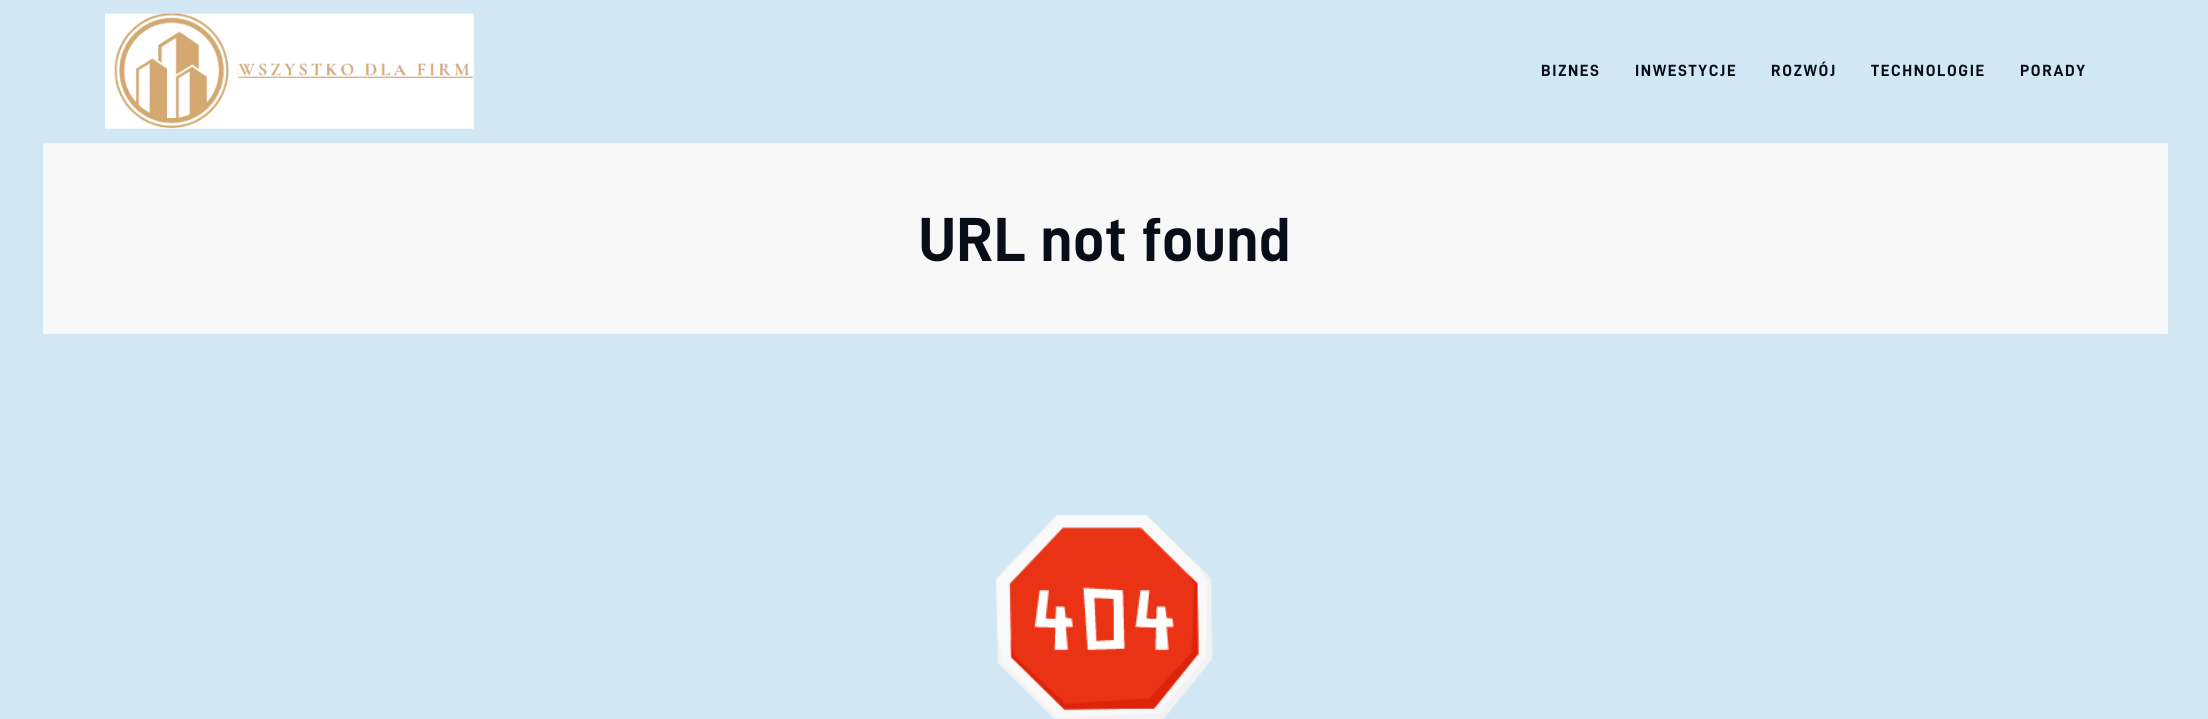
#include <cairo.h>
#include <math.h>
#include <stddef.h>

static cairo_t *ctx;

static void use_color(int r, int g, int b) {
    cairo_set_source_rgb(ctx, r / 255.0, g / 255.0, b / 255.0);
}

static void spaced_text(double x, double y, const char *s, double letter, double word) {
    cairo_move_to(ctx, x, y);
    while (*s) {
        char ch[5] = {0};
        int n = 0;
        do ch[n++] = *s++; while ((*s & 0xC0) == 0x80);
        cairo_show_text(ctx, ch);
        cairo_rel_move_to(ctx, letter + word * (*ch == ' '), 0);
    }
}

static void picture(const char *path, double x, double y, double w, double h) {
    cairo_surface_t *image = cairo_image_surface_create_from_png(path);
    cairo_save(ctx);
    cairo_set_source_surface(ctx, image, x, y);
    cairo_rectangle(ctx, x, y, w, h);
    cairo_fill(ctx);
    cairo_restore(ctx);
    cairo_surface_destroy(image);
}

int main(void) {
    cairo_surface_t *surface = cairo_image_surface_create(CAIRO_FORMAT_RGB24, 2208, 719);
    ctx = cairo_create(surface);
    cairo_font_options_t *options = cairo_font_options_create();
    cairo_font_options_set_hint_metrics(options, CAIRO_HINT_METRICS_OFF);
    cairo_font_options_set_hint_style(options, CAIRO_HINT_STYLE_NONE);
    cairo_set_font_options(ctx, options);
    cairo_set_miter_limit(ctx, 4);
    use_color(209, 231, 243);
    cairo_paint(ctx);
    use_color(236, 241, 247);
    cairo_rectangle(ctx, 43, 143, 2125, 1);
    cairo_fill(ctx);
    picture("img1.png", 105, 13, 369, 116);
    cairo_select_font_face(ctx, "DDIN", CAIRO_FONT_SLANT_NORMAL, CAIRO_FONT_WEIGHT_BOLD);
    cairo_set_font_size(ctx, 16.25);
    use_color(9, 13, 23);
    spaced_text(1541, 76, "BIZNES", 1.6, 0);
    spaced_text(1635, 76, "INWESTYCJE", 1.6, 0);
    spaced_text(1771, 76, "ROZWÓJ", 1.6, 0);
    spaced_text(1871, 76, "TECHNOLOGIE", 1.6, 0);
    spaced_text(2020, 76, "PORADY", 1.6, 0);
    use_color(248, 248, 248);
    cairo_rectangle(ctx, 43, 144, 2125, 190);
    cairo_fill(ctx);
    cairo_set_font_size(ctx, 62.5);
    use_color(9, 13, 23);
    cairo_move_to(ctx, 918, 261);
    cairo_show_text(ctx, "URL not found");
    picture("img2.png", 996, 515, 217, 204);
    cairo_surface_write_to_png(surface, "result.png");
    cairo_font_options_destroy(options);
    cairo_destroy(ctx);
    cairo_surface_destroy(surface);
    return 0;
}
